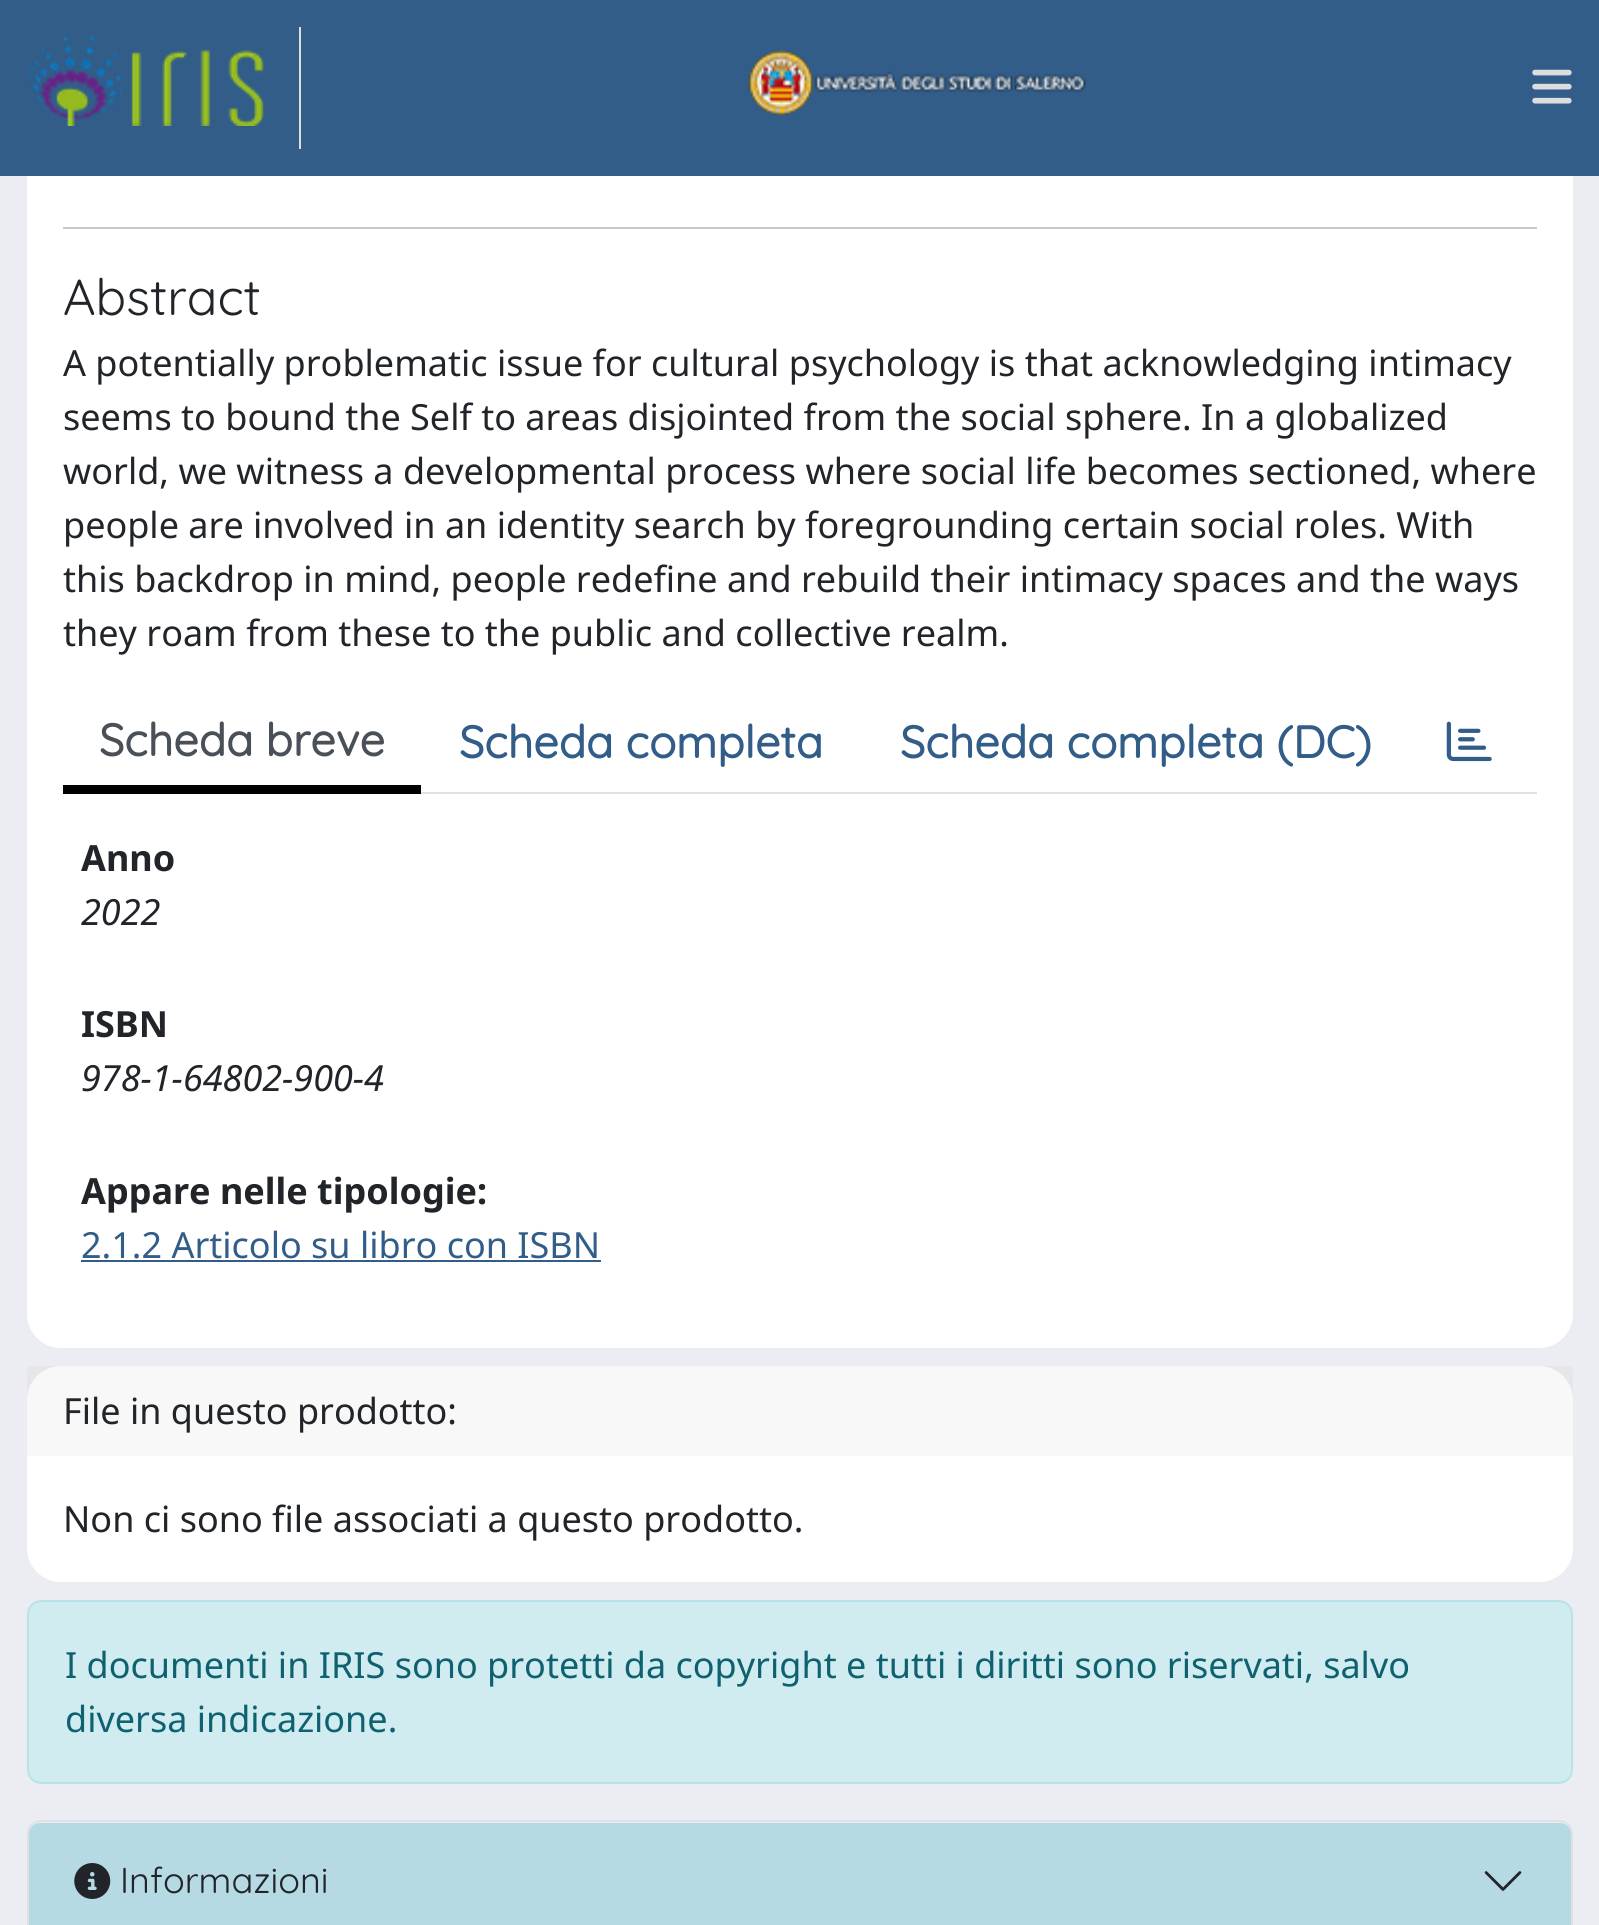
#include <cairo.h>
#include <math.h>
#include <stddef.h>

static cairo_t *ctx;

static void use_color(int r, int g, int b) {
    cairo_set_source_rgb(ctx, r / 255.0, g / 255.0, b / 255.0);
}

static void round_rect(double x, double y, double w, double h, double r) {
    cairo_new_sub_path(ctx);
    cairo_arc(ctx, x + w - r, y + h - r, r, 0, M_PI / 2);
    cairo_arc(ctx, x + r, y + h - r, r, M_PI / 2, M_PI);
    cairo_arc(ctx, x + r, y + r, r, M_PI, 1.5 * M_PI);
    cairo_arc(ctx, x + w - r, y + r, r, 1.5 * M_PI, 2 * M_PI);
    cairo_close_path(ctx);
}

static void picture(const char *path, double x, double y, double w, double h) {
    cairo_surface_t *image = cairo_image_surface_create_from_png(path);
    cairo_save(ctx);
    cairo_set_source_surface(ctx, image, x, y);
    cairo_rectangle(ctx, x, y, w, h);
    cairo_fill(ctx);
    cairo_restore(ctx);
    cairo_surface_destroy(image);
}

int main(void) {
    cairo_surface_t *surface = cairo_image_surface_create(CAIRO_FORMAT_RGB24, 1599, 1925);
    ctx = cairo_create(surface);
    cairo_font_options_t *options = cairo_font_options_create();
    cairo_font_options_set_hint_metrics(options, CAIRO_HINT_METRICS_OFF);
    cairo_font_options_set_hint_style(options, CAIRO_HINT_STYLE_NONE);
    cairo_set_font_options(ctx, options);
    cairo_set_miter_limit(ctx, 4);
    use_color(236, 237, 242);
    cairo_paint(ctx);
    use_color(255, 255, 255);
    round_rect(27, -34, 1546, 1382, 34);
    cairo_fill(ctx);
    use_color(50, 93, 136);
    cairo_rectangle(ctx, 0, 0, 1599, 176);
    cairo_fill(ctx);
    use_color(221, 221, 221);
    cairo_rectangle(ctx, 299, 27, 2, 122);
    cairo_fill(ctx);
    picture("img1.png", 27, 36, 237, 90);
    picture("img2.png", 748, 49, 338, 67);
    picture("img3.png", 1532, 69, 40, 35);
    use_color(200, 201, 202);
    cairo_rectangle(ctx, 63, 227, 1474, 2);
    cairo_fill(ctx);
    cairo_select_font_face(ctx, "Quicksand", CAIRO_FONT_SLANT_NORMAL, CAIRO_FONT_WEIGHT_NORMAL);
    cairo_set_font_size(ctx, 50.5);
    use_color(33, 37, 41);
    cairo_move_to(ctx, 63, 315);
    cairo_show_text(ctx, "Abstract");
    cairo_select_font_face(ctx, "Noto Sans", CAIRO_FONT_SLANT_NORMAL, CAIRO_FONT_WEIGHT_NORMAL);
    cairo_set_font_size(ctx, 36);
    cairo_move_to(ctx, 63, 376);
    cairo_show_text(ctx, "A potentially problematic issue for cultural psychology is that acknowledging intimacy");
    cairo_move_to(ctx, 63, 430);
    cairo_show_text(ctx, "seems to bound the Self to areas disjointed from the social sphere. In a globalized");
    cairo_move_to(ctx, 63, 484);
    cairo_show_text(ctx, "world, we witness a developmental process where social life becomes sectioned, where");
    cairo_move_to(ctx, 63, 538);
    cairo_show_text(ctx, "people are involved in an identity search by foregrounding certain social roles. With");
    cairo_move_to(ctx, 63, 592);
    cairo_show_text(ctx, "this backdrop in mind, people redefine and rebuild their intimacy spaces and the ways");
    cairo_move_to(ctx, 63, 646);
    cairo_show_text(ctx, "they roam from these to the public and collective realm.");
    use_color(222, 226, 230);
    cairo_rectangle(ctx, 421, 792, 1116, 2);
    cairo_fill(ctx);
    use_color(0, 0, 0);
    cairo_rectangle(ctx, 63, 785, 358, 9);
    cairo_fill(ctx);
    cairo_select_font_face(ctx, "Quicksand", CAIRO_FONT_SLANT_NORMAL, CAIRO_FONT_WEIGHT_BOLD);
    cairo_set_font_size(ctx, 45);
    use_color(73, 80, 87);
    cairo_move_to(ctx, 99, 756);
    cairo_show_text(ctx, "Scheda breve");
    use_color(50, 93, 136);
    cairo_move_to(ctx, 459, 758);
    cairo_show_text(ctx, "Scheda completa");
    cairo_move_to(ctx, 900, 758);
    cairo_show_text(ctx, "Scheda completa (DC)");
    picture("img4.png", 1446, 721, 46, 41);
    cairo_select_font_face(ctx, "Noto Sans", CAIRO_FONT_SLANT_NORMAL, CAIRO_FONT_WEIGHT_BOLD);
    cairo_set_font_size(ctx, 36);
    use_color(33, 37, 41);
    cairo_move_to(ctx, 81, 871);
    cairo_show_text(ctx, "Anno");
    cairo_select_font_face(ctx, "Noto Sans", CAIRO_FONT_SLANT_ITALIC, CAIRO_FONT_WEIGHT_NORMAL);
    cairo_move_to(ctx, 81, 925);
    cairo_show_text(ctx, "2022");
    cairo_select_font_face(ctx, "Noto Sans", CAIRO_FONT_SLANT_NORMAL, CAIRO_FONT_WEIGHT_BOLD);
    cairo_move_to(ctx, 81, 1037);
    cairo_show_text(ctx, "ISBN");
    cairo_select_font_face(ctx, "Noto Sans", CAIRO_FONT_SLANT_ITALIC, CAIRO_FONT_WEIGHT_NORMAL);
    cairo_move_to(ctx, 81, 1091);
    cairo_show_text(ctx, "978-1-64802-900-4");
    cairo_select_font_face(ctx, "Noto Sans", CAIRO_FONT_SLANT_NORMAL, CAIRO_FONT_WEIGHT_BOLD);
    cairo_move_to(ctx, 81, 1204);
    cairo_show_text(ctx, "Appare nelle tipologie:");
    cairo_select_font_face(ctx, "Noto Sans", CAIRO_FONT_SLANT_NORMAL, CAIRO_FONT_WEIGHT_NORMAL);
    use_color(50, 93, 136);
    cairo_move_to(ctx, 81, 1258);
    cairo_show_text(ctx, "2.1.2 Articolo su libro con ISBN");
    cairo_rectangle(ctx, 81, 1260, 520, 2);
    cairo_fill(ctx);
    use_color(255, 255, 255);
    round_rect(27, 1366, 1546, 216, 34);
    cairo_fill(ctx);
    cairo_set_source_rgba(ctx, 0, 0, 0, 0.03);
    cairo_rectangle(ctx, 27, 1366, 1546, 90);
    cairo_fill(ctx);
    use_color(33, 37, 41);
    cairo_move_to(ctx, 63, 1424);
    cairo_show_text(ctx, "File in questo prodotto:");
    cairo_move_to(ctx, 63, 1532);
    cairo_show_text(ctx, "Non ci sono file associati a questo prodotto.");
    use_color(209, 236, 241);
    round_rect(28, 1601, 1544, 182, 13);
    cairo_fill_preserve(ctx);
    use_color(185, 227, 234);
    cairo_stroke(ctx);
    use_color(14, 97, 110);
    cairo_move_to(ctx, 65, 1678);
    cairo_show_text(ctx, "I documenti in IRIS sono protetti da copyright e tutti i diritti sono riservati, salvo");
    cairo_move_to(ctx, 65, 1732);
    cairo_show_text(ctx, "diversa indicazione.");
    round_rect(28, 1821, 1544, 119, 13);
    use_color(222, 226, 230);
    cairo_stroke(ctx);
    cairo_set_source_rgba(ctx, 0.09, 0.635, 0.722, 0.25);
    round_rect(29, 1823, 1542, 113, 11);
    cairo_fill(ctx);
    picture("img5.png", 74, 1863, 37, 36);
    cairo_select_font_face(ctx, "Quicksand", CAIRO_FONT_SLANT_NORMAL, CAIRO_FONT_WEIGHT_NORMAL);
    use_color(33, 37, 41);
    cairo_move_to(ctx, 120, 1893);
    cairo_show_text(ctx, "Informazioni");
    picture("img6.png", 1484, 1871, 38, 20);
    cairo_surface_write_to_png(surface, "result.png");
    cairo_font_options_destroy(options);
    cairo_destroy(ctx);
    cairo_surface_destroy(surface);
    return 0;
}
